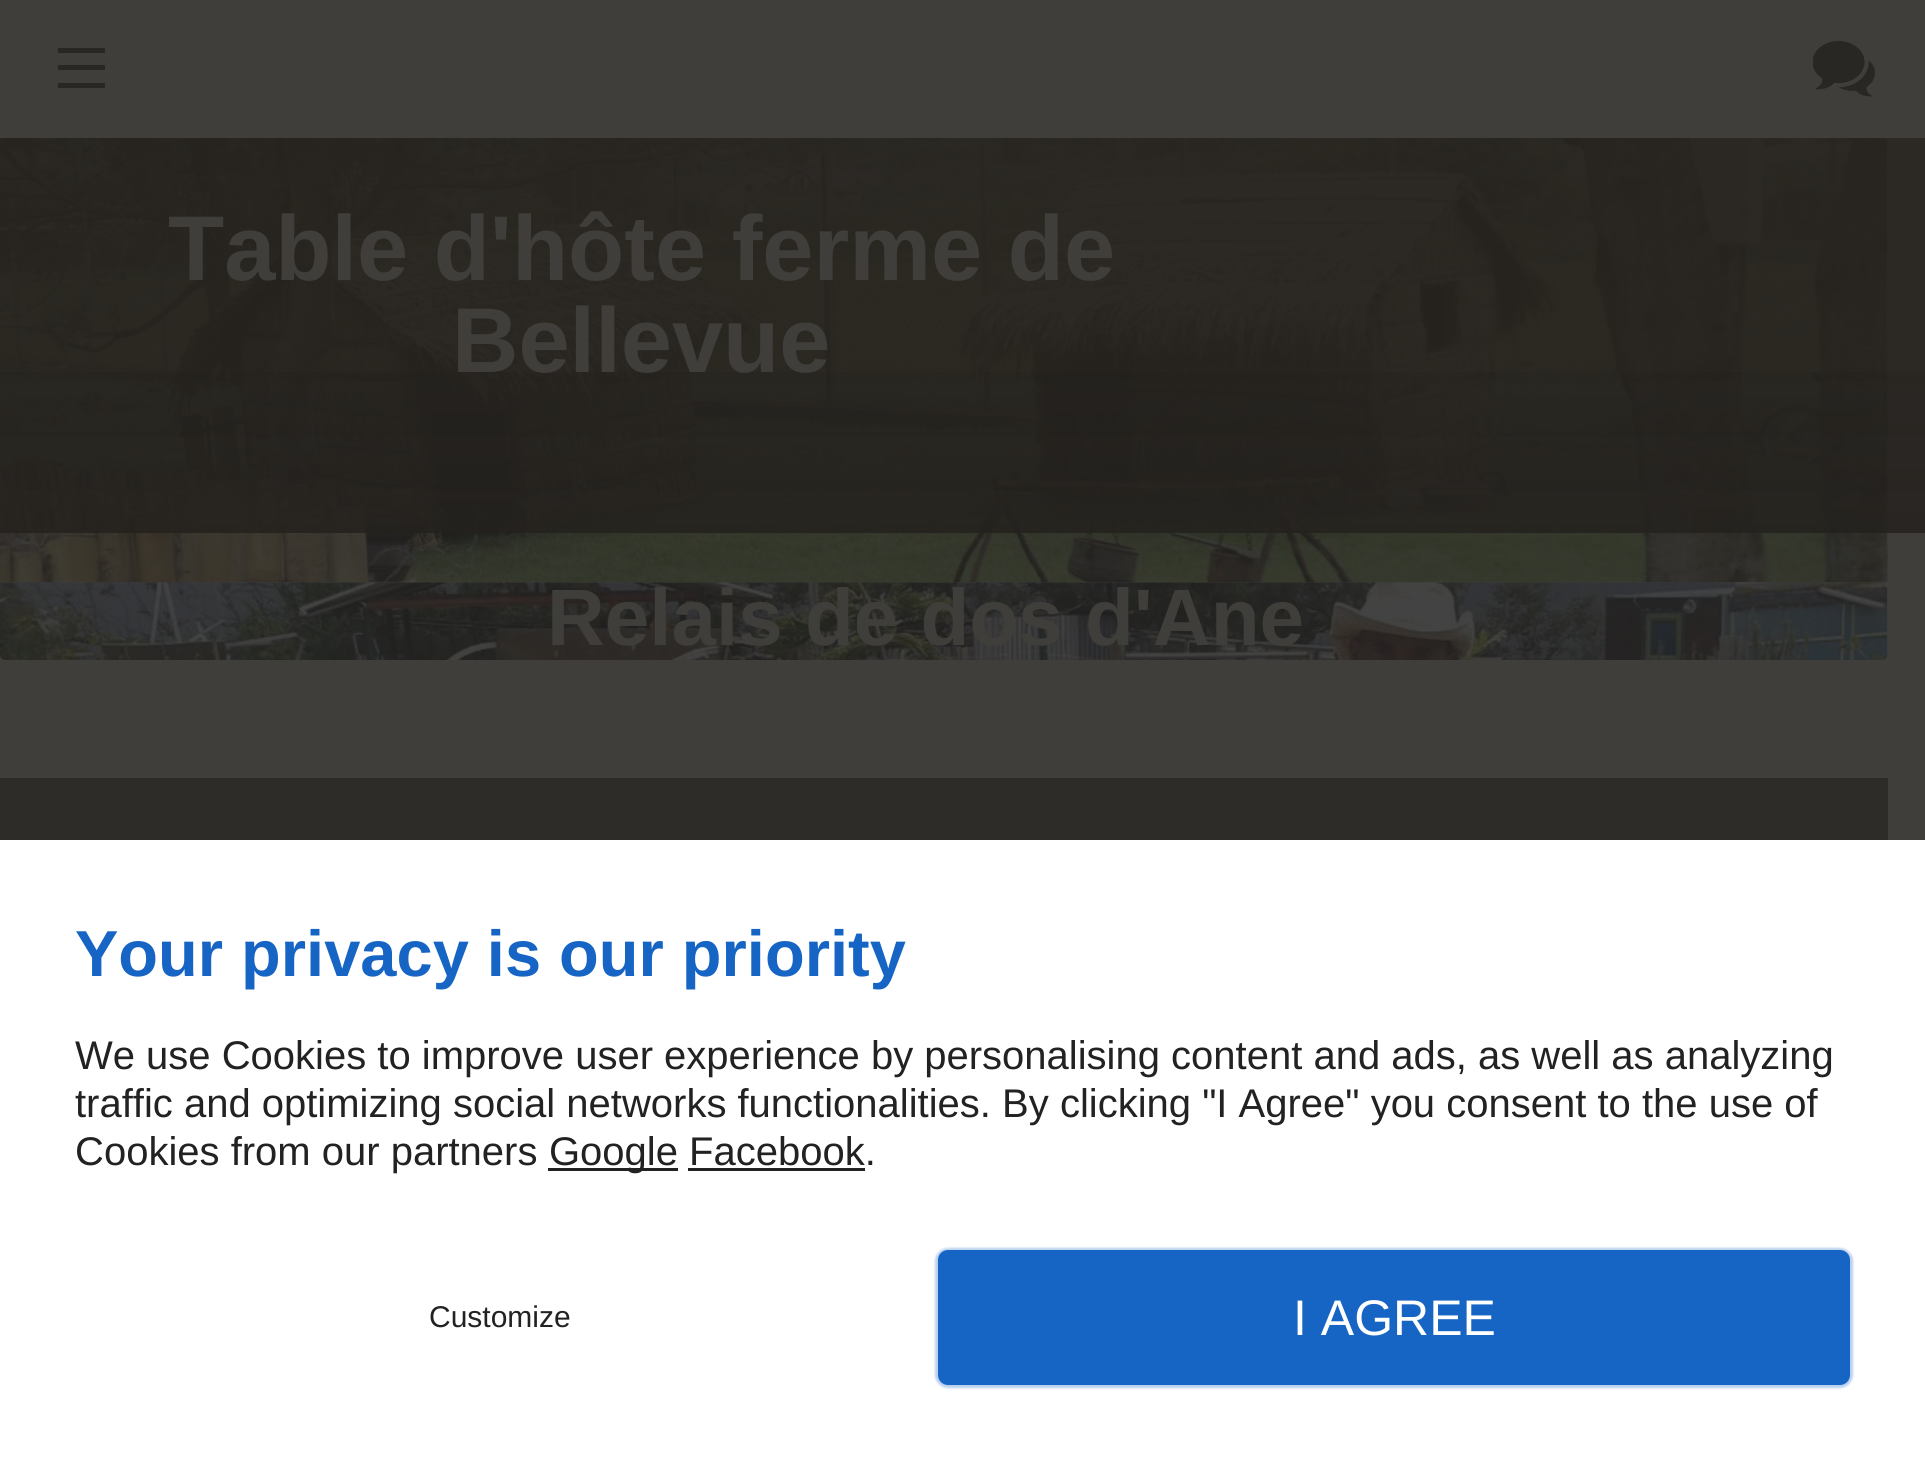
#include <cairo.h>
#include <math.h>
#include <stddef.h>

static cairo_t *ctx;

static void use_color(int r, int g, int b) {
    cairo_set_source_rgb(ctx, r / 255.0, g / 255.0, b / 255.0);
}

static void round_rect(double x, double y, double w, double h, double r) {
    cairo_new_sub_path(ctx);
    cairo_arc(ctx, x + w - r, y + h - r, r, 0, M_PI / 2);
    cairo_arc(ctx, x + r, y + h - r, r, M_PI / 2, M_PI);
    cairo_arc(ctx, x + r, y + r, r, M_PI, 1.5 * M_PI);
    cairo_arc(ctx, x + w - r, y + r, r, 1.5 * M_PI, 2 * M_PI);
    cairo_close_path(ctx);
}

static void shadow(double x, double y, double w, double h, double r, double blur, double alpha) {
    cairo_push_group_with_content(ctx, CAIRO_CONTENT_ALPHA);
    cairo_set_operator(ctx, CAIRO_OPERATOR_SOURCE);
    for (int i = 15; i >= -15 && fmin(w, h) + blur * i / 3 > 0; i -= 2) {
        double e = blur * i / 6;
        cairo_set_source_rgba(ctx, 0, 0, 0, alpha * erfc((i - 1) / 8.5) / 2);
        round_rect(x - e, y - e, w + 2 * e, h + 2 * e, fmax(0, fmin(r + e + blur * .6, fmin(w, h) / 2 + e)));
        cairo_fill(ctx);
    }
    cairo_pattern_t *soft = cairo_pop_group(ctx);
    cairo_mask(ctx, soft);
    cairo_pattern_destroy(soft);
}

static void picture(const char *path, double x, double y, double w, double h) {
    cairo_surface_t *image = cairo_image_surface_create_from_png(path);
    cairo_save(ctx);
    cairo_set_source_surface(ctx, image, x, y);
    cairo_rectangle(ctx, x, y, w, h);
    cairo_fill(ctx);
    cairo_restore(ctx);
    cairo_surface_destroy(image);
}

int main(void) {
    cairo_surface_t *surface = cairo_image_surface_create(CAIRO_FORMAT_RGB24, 1925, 1459);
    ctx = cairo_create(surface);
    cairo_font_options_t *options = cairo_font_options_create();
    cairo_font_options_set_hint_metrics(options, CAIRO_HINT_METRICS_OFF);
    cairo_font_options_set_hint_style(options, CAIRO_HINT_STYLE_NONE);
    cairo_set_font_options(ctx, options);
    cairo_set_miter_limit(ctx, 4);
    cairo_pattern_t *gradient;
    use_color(63, 62, 59);
    cairo_paint(ctx);
    use_color(40, 39, 35);
    cairo_rectangle(ctx, 58, 83, 47, 5);
    cairo_fill(ctx);
    cairo_rectangle(ctx, 58, 65, 47, 5);
    cairo_fill(ctx);
    cairo_rectangle(ctx, 58, 48, 47, 5);
    cairo_fill(ctx);
    picture("img1.png", 1813, 41, 62, 56);
    gradient = cairo_pattern_create_linear(944, 137, 944, 660);
    cairo_pattern_add_color_stop_rgba(gradient, 0, 0.263, 0.263, 0.263, 1);
    cairo_pattern_add_color_stop_rgba(gradient, 0.2, 0.263, 0.263, 0.263, 1);
    cairo_pattern_add_color_stop_rgba(gradient, 0.8, 0.255, 0.255, 0.255, 1);
    cairo_pattern_add_color_stop_rgba(gradient, 1, 0.243, 0.243, 0.243, 1);
    cairo_set_source(ctx, gradient);
    cairo_pattern_destroy(gradient);
    round_rect(0, 138, 1888, 522, 5);
    cairo_fill(ctx);
    picture("img2.png", 0, 138, 1888, 445);
    picture("img3.png", 1887, 141, 1, 442);
    picture("img4.png", 0, 582, 1888, 78);
    cairo_set_source_rgba(ctx, 0.153, 0.141, 0.122, 0.8);
    cairo_rectangle(ctx, 0, 138, 1925, 395);
    cairo_fill(ctx);
    gradient = cairo_pattern_create_linear(963, 137, 963, 533);
    cairo_pattern_add_color_stop_rgba(gradient, 0, 0.114, 0.114, 0.114, 0);
    cairo_pattern_add_color_stop_rgba(gradient, 1, 0.114, 0.114, 0.114, 0.25);
    cairo_set_source(ctx, gradient);
    cairo_pattern_destroy(gradient);
    cairo_rectangle(ctx, 0, 372, 1925, 161);
    cairo_fill(ctx);
    cairo_select_font_face(ctx, "Liberation Sans", CAIRO_FONT_SLANT_NORMAL, CAIRO_FONT_WEIGHT_BOLD);
    cairo_set_font_size(ctx, 92);
    use_color(63, 62, 59);
    cairo_move_to(ctx, 168, 280);
    cairo_show_text(ctx, "Table d'hôte ferme de");
    cairo_move_to(ctx, 452, 372);
    cairo_show_text(ctx, "Bellevue");
    cairo_set_font_size(ctx, 80);
    cairo_move_to(ctx, 547, 645);
    cairo_show_text(ctx, "Relais de dos d'Ane");
    use_color(46, 44, 40);
    cairo_rectangle(ctx, 0, 778, 1888, 62);
    cairo_fill(ctx);
    use_color(255, 255, 255);
    cairo_rectangle(ctx, 0, 840, 1925, 619);
    cairo_fill(ctx);
    cairo_set_font_size(ctx, 65);
    use_color(22, 101, 196);
    cairo_move_to(ctx, 75, 976);
    cairo_show_text(ctx, "Your privacy is our priority");
    cairo_select_font_face(ctx, "Liberation Sans", CAIRO_FONT_SLANT_NORMAL, CAIRO_FONT_WEIGHT_NORMAL);
    cairo_set_font_size(ctx, 40);
    use_color(34, 34, 34);
    cairo_move_to(ctx, 75, 1069);
    cairo_show_text(ctx, "We use Cookies to improve user experience by personalising content and ads, as well as analyzing");
    cairo_move_to(ctx, 75, 1117);
    cairo_show_text(ctx, "traffic and optimizing social networks functionalities. By clicking \"I Agree\" you consent to the use of");
    cairo_move_to(ctx, 75, 1165);
    cairo_show_text(ctx, "Cookies from our partners");
    cairo_rectangle(ctx, 548, 1168, 130, 3);
    cairo_fill(ctx);
    cairo_move_to(ctx, 549, 1165);
    cairo_show_text(ctx, "Google Facebook.");
    cairo_rectangle(ctx, 688, 1168, 177, 3);
    cairo_fill(ctx);
    cairo_set_font_size(ctx, 30);
    cairo_move_to(ctx, 429, 1327);
    cairo_show_text(ctx, "Customize");
    use_color(22, 101, 196);
    shadow(935, 1248, 918, 140, 13, 1, 0.3);
    use_color(22, 101, 196);
    round_rect(940.5, 1252.5, 907, 130, 7.5);
    cairo_fill_preserve(ctx);
    cairo_set_line_width(ctx, 5);
    cairo_stroke(ctx);
    cairo_set_font_size(ctx, 50);
    use_color(255, 255, 255);
    cairo_move_to(ctx, 1293, 1335);
    cairo_show_text(ctx, "I AGREE");
    cairo_surface_write_to_png(surface, "result.png");
    cairo_font_options_destroy(options);
    cairo_destroy(ctx);
    cairo_surface_destroy(surface);
    return 0;
}
